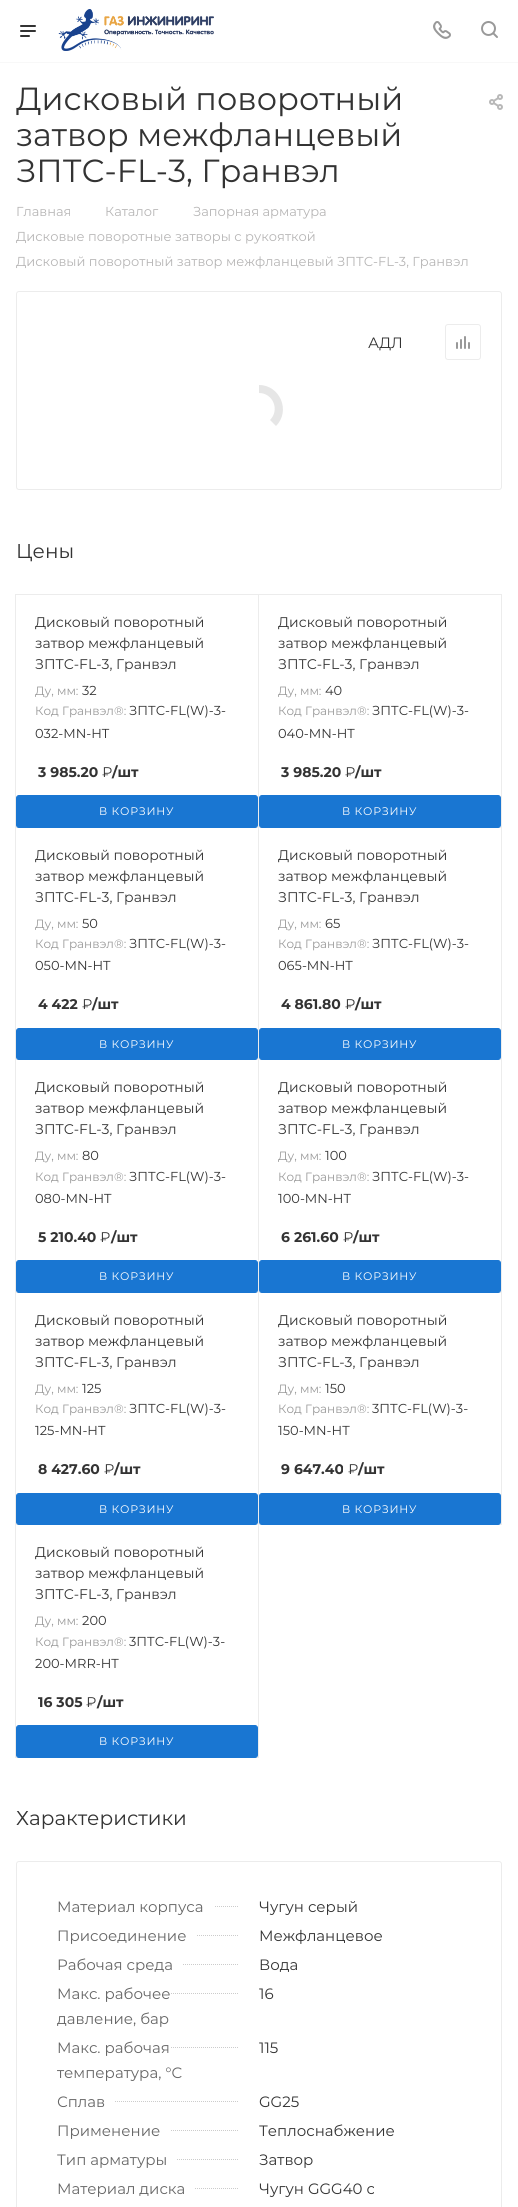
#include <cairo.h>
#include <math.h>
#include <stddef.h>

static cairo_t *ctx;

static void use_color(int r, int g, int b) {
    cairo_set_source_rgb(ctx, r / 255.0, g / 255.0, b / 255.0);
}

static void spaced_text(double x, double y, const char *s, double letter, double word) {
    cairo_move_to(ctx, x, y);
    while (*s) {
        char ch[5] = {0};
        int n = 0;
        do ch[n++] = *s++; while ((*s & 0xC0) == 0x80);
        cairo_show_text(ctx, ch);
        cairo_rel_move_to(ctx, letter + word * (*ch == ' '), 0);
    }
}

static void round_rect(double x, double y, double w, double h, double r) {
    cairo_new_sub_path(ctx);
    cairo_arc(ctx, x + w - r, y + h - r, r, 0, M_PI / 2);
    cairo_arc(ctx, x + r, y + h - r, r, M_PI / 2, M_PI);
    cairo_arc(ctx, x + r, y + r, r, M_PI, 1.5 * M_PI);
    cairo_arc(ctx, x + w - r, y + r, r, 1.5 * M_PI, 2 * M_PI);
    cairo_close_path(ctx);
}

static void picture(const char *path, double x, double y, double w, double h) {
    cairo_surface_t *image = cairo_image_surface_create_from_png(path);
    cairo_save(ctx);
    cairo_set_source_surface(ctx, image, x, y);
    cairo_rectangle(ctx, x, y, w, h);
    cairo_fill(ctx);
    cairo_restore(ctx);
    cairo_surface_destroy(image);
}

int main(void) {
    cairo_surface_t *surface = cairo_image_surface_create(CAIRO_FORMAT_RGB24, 518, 2207);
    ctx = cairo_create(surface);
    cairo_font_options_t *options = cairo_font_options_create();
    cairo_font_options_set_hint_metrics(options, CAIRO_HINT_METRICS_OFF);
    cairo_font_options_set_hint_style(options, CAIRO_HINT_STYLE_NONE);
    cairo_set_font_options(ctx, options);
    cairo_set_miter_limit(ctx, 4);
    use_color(255, 255, 255);
    cairo_paint(ctx);
    use_color(248, 248, 248);
    cairo_rectangle(ctx, 0, 62, 518, 1);
    cairo_fill(ctx);
    picture("img1.png", 20, 25, 16, 12);
    picture("img2.png", 58, 9, 156, 42);
    picture("img3.png", 433, 21, 18, 18);
    picture("img4.png", 481, 21, 17, 17);
    cairo_select_font_face(ctx, "Montserrat", CAIRO_FONT_SLANT_NORMAL, CAIRO_FONT_WEIGHT_NORMAL);
    cairo_set_font_size(ctx, 32);
    use_color(51, 51, 51);
    cairo_move_to(ctx, 16, 110);
    cairo_show_text(ctx, "Дисковый поворотный");
    cairo_move_to(ctx, 16, 146);
    cairo_show_text(ctx, "затвор межфланцевый");
    cairo_move_to(ctx, 16, 182);
    cairo_show_text(ctx, "ЗПТС-FL-3, Гранвэл");
    picture("img5.png", 489, 94, 14, 16);
    cairo_set_font_size(ctx, 13);
    use_color(182, 181, 181);
    cairo_move_to(ctx, 16, 216);
    cairo_show_text(ctx, "Главная");
    cairo_move_to(ctx, 105, 216);
    cairo_show_text(ctx, "Каталог");
    cairo_move_to(ctx, 193, 216);
    cairo_show_text(ctx, "Запорная арматура");
    cairo_move_to(ctx, 16, 241);
    cairo_show_text(ctx, "Дисковые поворотные затворы с рукояткой");
    cairo_move_to(ctx, 16, 266);
    cairo_show_text(ctx, "Дисковый поворотный затвор межфланцевый ЗПТС-FL-3, Гранвэл");
    round_rect(16.5, 291.5, 485, 198, 2.5);
    use_color(236, 236, 236);
    cairo_set_line_width(ctx, 1);
    cairo_stroke(ctx);
    cairo_set_font_size(ctx, 15);
    use_color(51, 51, 51);
    cairo_move_to(ctx, 368, 348);
    cairo_show_text(ctx, "АДЛ");
    round_rect(445.5, 324.5, 35, 35, 2.5);
    use_color(236, 236, 236);
    cairo_stroke(ctx);
    picture("img6.png", 456, 336, 14, 13);
    use_color(230, 230, 230);
    cairo_new_path(ctx);
    cairo_move_to(ctx, 259, 385);
    cairo_curve_to(ctx, 280, 385, 291, 411, 276, 426);
    cairo_line_to(ctx, 270, 420);
    cairo_curve_to(ctx, 280, 410, 273, 393, 259, 393);
    cairo_close_path(ctx);
    cairo_fill(ctx);
    cairo_set_font_size(ctx, 20);
    use_color(51, 51, 51);
    cairo_move_to(ctx, 16, 558);
    cairo_show_text(ctx, "Цены");
    cairo_rectangle(ctx, 15.5, 594.5, 243, 233);
    use_color(236, 236, 236);
    cairo_stroke(ctx);
    cairo_set_font_size(ctx, 14);
    use_color(51, 51, 51);
    cairo_move_to(ctx, 35, 627);
    cairo_show_text(ctx, "Дисковый поворотный");
    cairo_move_to(ctx, 35, 648);
    cairo_show_text(ctx, "затвор межфланцевый");
    cairo_move_to(ctx, 35, 669);
    cairo_show_text(ctx, "ЗПТС-FL-3, Гранвэл");
    cairo_set_font_size(ctx, 12);
    use_color(153, 153, 153);
    cairo_move_to(ctx, 35, 695);
    cairo_show_text(ctx, "Ду, мм:");
    cairo_set_font_size(ctx, 13);
    use_color(51, 51, 51);
    cairo_move_to(ctx, 82, 695);
    cairo_show_text(ctx, "32");
    cairo_set_font_size(ctx, 12);
    use_color(153, 153, 153);
    cairo_move_to(ctx, 35, 715);
    cairo_show_text(ctx, "Код Гранвэл®:");
    cairo_set_font_size(ctx, 13);
    use_color(51, 51, 51);
    cairo_move_to(ctx, 129, 715);
    cairo_show_text(ctx, "ЗПТС-FL(W)-3-");
    cairo_move_to(ctx, 35, 738);
    cairo_show_text(ctx, "032-MN-HT");
    cairo_select_font_face(ctx, "Montserrat", CAIRO_FONT_SLANT_NORMAL, CAIRO_FONT_WEIGHT_BOLD);
    cairo_set_font_size(ctx, 14);
    cairo_move_to(ctx, 38, 777);
    cairo_show_text(ctx, "3 985.20");
    cairo_select_font_face(ctx, "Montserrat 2", CAIRO_FONT_SLANT_NORMAL, CAIRO_FONT_WEIGHT_NORMAL);
    cairo_move_to(ctx, 102, 777);
    cairo_show_text(ctx, "₽");
    cairo_select_font_face(ctx, "Montserrat", CAIRO_FONT_SLANT_NORMAL, CAIRO_FONT_WEIGHT_BOLD);
    cairo_move_to(ctx, 112, 777);
    cairo_show_text(ctx, "/шт");
    cairo_rectangle(ctx, 258.5, 594.5, 243, 233);
    use_color(236, 236, 236);
    cairo_stroke(ctx);
    cairo_rectangle(ctx, 15.5, 827.5, 243, 232);
    cairo_stroke(ctx);
    use_color(25, 118, 210);
    round_rect(16.5, 795.5, 241, 32, 2.5);
    cairo_fill_preserve(ctx);
    cairo_stroke(ctx);
    cairo_select_font_face(ctx, "Montserrat", CAIRO_FONT_SLANT_NORMAL, CAIRO_FONT_WEIGHT_NORMAL);
    cairo_set_font_size(ctx, 11);
    use_color(255, 255, 255);
    spaced_text(99, 815, "В КОРЗИНУ", 0.75, 0);
    cairo_set_font_size(ctx, 14);
    use_color(51, 51, 51);
    cairo_move_to(ctx, 278, 627);
    cairo_show_text(ctx, "Дисковый поворотный");
    cairo_move_to(ctx, 278, 648);
    cairo_show_text(ctx, "затвор межфланцевый");
    cairo_move_to(ctx, 278, 669);
    cairo_show_text(ctx, "ЗПТС-FL-3, Гранвэл");
    cairo_set_font_size(ctx, 12);
    use_color(153, 153, 153);
    cairo_move_to(ctx, 278, 695);
    cairo_show_text(ctx, "Ду, мм:");
    cairo_set_font_size(ctx, 13);
    use_color(51, 51, 51);
    cairo_move_to(ctx, 325, 695);
    cairo_show_text(ctx, "40");
    cairo_set_font_size(ctx, 12);
    use_color(153, 153, 153);
    cairo_move_to(ctx, 278, 715);
    cairo_show_text(ctx, "Код Гранвэл®:");
    cairo_set_font_size(ctx, 13);
    use_color(51, 51, 51);
    cairo_move_to(ctx, 372, 715);
    cairo_show_text(ctx, "ЗПТС-FL(W)-3-");
    cairo_move_to(ctx, 278, 738);
    cairo_show_text(ctx, "040-MN-HT");
    cairo_select_font_face(ctx, "Montserrat", CAIRO_FONT_SLANT_NORMAL, CAIRO_FONT_WEIGHT_BOLD);
    cairo_set_font_size(ctx, 14);
    cairo_move_to(ctx, 281, 777);
    cairo_show_text(ctx, "3 985.20");
    cairo_select_font_face(ctx, "Montserrat 2", CAIRO_FONT_SLANT_NORMAL, CAIRO_FONT_WEIGHT_NORMAL);
    cairo_move_to(ctx, 345, 777);
    cairo_show_text(ctx, "₽");
    cairo_select_font_face(ctx, "Montserrat", CAIRO_FONT_SLANT_NORMAL, CAIRO_FONT_WEIGHT_BOLD);
    cairo_move_to(ctx, 355, 777);
    cairo_show_text(ctx, "/шт");
    cairo_rectangle(ctx, 258.5, 827.5, 243, 232);
    use_color(236, 236, 236);
    cairo_stroke(ctx);
    use_color(25, 118, 210);
    round_rect(259.5, 795.5, 241, 32, 2.5);
    cairo_fill_preserve(ctx);
    cairo_stroke(ctx);
    cairo_select_font_face(ctx, "Montserrat", CAIRO_FONT_SLANT_NORMAL, CAIRO_FONT_WEIGHT_NORMAL);
    cairo_set_font_size(ctx, 11);
    use_color(255, 255, 255);
    spaced_text(342, 815, "В КОРЗИНУ", 0.75, 0);
    cairo_set_font_size(ctx, 14);
    use_color(51, 51, 51);
    cairo_move_to(ctx, 35, 860);
    cairo_show_text(ctx, "Дисковый поворотный");
    cairo_move_to(ctx, 35, 881);
    cairo_show_text(ctx, "затвор межфланцевый");
    cairo_move_to(ctx, 35, 902);
    cairo_show_text(ctx, "ЗПТС-FL-3, Гранвэл");
    cairo_set_font_size(ctx, 12);
    use_color(153, 153, 153);
    cairo_move_to(ctx, 35, 928);
    cairo_show_text(ctx, "Ду, мм:");
    cairo_set_font_size(ctx, 13);
    use_color(51, 51, 51);
    cairo_move_to(ctx, 82, 928);
    cairo_show_text(ctx, "50");
    cairo_set_font_size(ctx, 12);
    use_color(153, 153, 153);
    cairo_move_to(ctx, 35, 948);
    cairo_show_text(ctx, "Код Гранвэл®:");
    cairo_set_font_size(ctx, 13);
    use_color(51, 51, 51);
    cairo_move_to(ctx, 129, 948);
    cairo_show_text(ctx, "ЗПТС-FL(W)-3-");
    cairo_move_to(ctx, 35, 970);
    cairo_show_text(ctx, "050-MN-HT");
    cairo_select_font_face(ctx, "Montserrat", CAIRO_FONT_SLANT_NORMAL, CAIRO_FONT_WEIGHT_BOLD);
    cairo_set_font_size(ctx, 14);
    cairo_move_to(ctx, 38, 1009);
    cairo_show_text(ctx, "4 422");
    cairo_select_font_face(ctx, "Montserrat 2", CAIRO_FONT_SLANT_NORMAL, CAIRO_FONT_WEIGHT_NORMAL);
    cairo_move_to(ctx, 82, 1009);
    cairo_show_text(ctx, "₽");
    cairo_select_font_face(ctx, "Montserrat", CAIRO_FONT_SLANT_NORMAL, CAIRO_FONT_WEIGHT_BOLD);
    cairo_move_to(ctx, 92, 1009);
    cairo_show_text(ctx, "/шт");
    cairo_rectangle(ctx, 15.5, 1059.5, 243, 233);
    use_color(236, 236, 236);
    cairo_stroke(ctx);
    use_color(25, 118, 210);
    round_rect(16.5, 1028.5, 241, 31, 2.5);
    cairo_fill_preserve(ctx);
    cairo_stroke(ctx);
    cairo_select_font_face(ctx, "Montserrat", CAIRO_FONT_SLANT_NORMAL, CAIRO_FONT_WEIGHT_NORMAL);
    cairo_set_font_size(ctx, 11);
    use_color(255, 255, 255);
    spaced_text(99, 1048, "В КОРЗИНУ", 0.75, 0);
    cairo_set_font_size(ctx, 14);
    use_color(51, 51, 51);
    cairo_move_to(ctx, 278, 860);
    cairo_show_text(ctx, "Дисковый поворотный");
    cairo_move_to(ctx, 278, 881);
    cairo_show_text(ctx, "затвор межфланцевый");
    cairo_move_to(ctx, 278, 902);
    cairo_show_text(ctx, "ЗПТС-FL-3, Гранвэл");
    cairo_set_font_size(ctx, 12);
    use_color(153, 153, 153);
    cairo_move_to(ctx, 278, 928);
    cairo_show_text(ctx, "Ду, мм:");
    cairo_set_font_size(ctx, 13);
    use_color(51, 51, 51);
    cairo_move_to(ctx, 325, 928);
    cairo_show_text(ctx, "65");
    cairo_set_font_size(ctx, 12);
    use_color(153, 153, 153);
    cairo_move_to(ctx, 278, 948);
    cairo_show_text(ctx, "Код Гранвэл®:");
    cairo_set_font_size(ctx, 13);
    use_color(51, 51, 51);
    cairo_move_to(ctx, 372, 948);
    cairo_show_text(ctx, "ЗПТС-FL(W)-3-");
    cairo_move_to(ctx, 278, 970);
    cairo_show_text(ctx, "065-MN-HT");
    cairo_select_font_face(ctx, "Montserrat", CAIRO_FONT_SLANT_NORMAL, CAIRO_FONT_WEIGHT_BOLD);
    cairo_set_font_size(ctx, 14);
    cairo_move_to(ctx, 281, 1009);
    cairo_show_text(ctx, "4 861.80");
    cairo_select_font_face(ctx, "Montserrat 2", CAIRO_FONT_SLANT_NORMAL, CAIRO_FONT_WEIGHT_NORMAL);
    cairo_move_to(ctx, 345, 1009);
    cairo_show_text(ctx, "₽");
    cairo_select_font_face(ctx, "Montserrat", CAIRO_FONT_SLANT_NORMAL, CAIRO_FONT_WEIGHT_BOLD);
    cairo_move_to(ctx, 355, 1009);
    cairo_show_text(ctx, "/шт");
    cairo_rectangle(ctx, 258.5, 1059.5, 243, 233);
    use_color(236, 236, 236);
    cairo_stroke(ctx);
    use_color(25, 118, 210);
    round_rect(259.5, 1028.5, 241, 31, 2.5);
    cairo_fill_preserve(ctx);
    cairo_stroke(ctx);
    cairo_select_font_face(ctx, "Montserrat", CAIRO_FONT_SLANT_NORMAL, CAIRO_FONT_WEIGHT_NORMAL);
    cairo_set_font_size(ctx, 11);
    use_color(255, 255, 255);
    spaced_text(342, 1048, "В КОРЗИНУ", 0.75, 0);
    cairo_set_font_size(ctx, 14);
    use_color(51, 51, 51);
    cairo_move_to(ctx, 35, 1092);
    cairo_show_text(ctx, "Дисковый поворотный");
    cairo_move_to(ctx, 35, 1113);
    cairo_show_text(ctx, "затвор межфланцевый");
    cairo_move_to(ctx, 35, 1134);
    cairo_show_text(ctx, "ЗПТС-FL-3, Гранвэл");
    cairo_set_font_size(ctx, 12);
    use_color(153, 153, 153);
    cairo_move_to(ctx, 35, 1160);
    cairo_show_text(ctx, "Ду, мм:");
    cairo_set_font_size(ctx, 13);
    use_color(51, 51, 51);
    cairo_move_to(ctx, 82, 1160);
    cairo_show_text(ctx, "80");
    cairo_set_font_size(ctx, 12);
    use_color(153, 153, 153);
    cairo_move_to(ctx, 35, 1181);
    cairo_show_text(ctx, "Код Гранвэл®:");
    cairo_set_font_size(ctx, 13);
    use_color(51, 51, 51);
    cairo_move_to(ctx, 129, 1181);
    cairo_show_text(ctx, "ЗПТС-FL(W)-3-");
    cairo_move_to(ctx, 35, 1203);
    cairo_show_text(ctx, "080-MN-HT");
    cairo_select_font_face(ctx, "Montserrat", CAIRO_FONT_SLANT_NORMAL, CAIRO_FONT_WEIGHT_BOLD);
    cairo_set_font_size(ctx, 14);
    cairo_move_to(ctx, 38, 1242);
    cairo_show_text(ctx, "5 210.40");
    cairo_select_font_face(ctx, "Montserrat 2", CAIRO_FONT_SLANT_NORMAL, CAIRO_FONT_WEIGHT_NORMAL);
    cairo_move_to(ctx, 100, 1242);
    cairo_show_text(ctx, "₽");
    cairo_select_font_face(ctx, "Montserrat", CAIRO_FONT_SLANT_NORMAL, CAIRO_FONT_WEIGHT_BOLD);
    cairo_move_to(ctx, 111, 1242);
    cairo_show_text(ctx, "/шт");
    cairo_rectangle(ctx, 15.5, 1292.5, 243, 232);
    use_color(236, 236, 236);
    cairo_stroke(ctx);
    use_color(25, 118, 210);
    round_rect(16.5, 1260.5, 241, 32, 2.5);
    cairo_fill_preserve(ctx);
    cairo_stroke(ctx);
    cairo_select_font_face(ctx, "Montserrat", CAIRO_FONT_SLANT_NORMAL, CAIRO_FONT_WEIGHT_NORMAL);
    cairo_set_font_size(ctx, 11);
    use_color(255, 255, 255);
    spaced_text(99, 1280, "В КОРЗИНУ", 0.75, 0);
    cairo_set_font_size(ctx, 14);
    use_color(51, 51, 51);
    cairo_move_to(ctx, 278, 1092);
    cairo_show_text(ctx, "Дисковый поворотный");
    cairo_move_to(ctx, 278, 1113);
    cairo_show_text(ctx, "затвор межфланцевый");
    cairo_move_to(ctx, 278, 1134);
    cairo_show_text(ctx, "ЗПТС-FL-3, Гранвэл");
    cairo_set_font_size(ctx, 12);
    use_color(153, 153, 153);
    cairo_move_to(ctx, 278, 1160);
    cairo_show_text(ctx, "Ду, мм:");
    cairo_set_font_size(ctx, 13);
    use_color(51, 51, 51);
    cairo_move_to(ctx, 325, 1160);
    cairo_show_text(ctx, "100");
    cairo_set_font_size(ctx, 12);
    use_color(153, 153, 153);
    cairo_move_to(ctx, 278, 1181);
    cairo_show_text(ctx, "Код Гранвэл®:");
    cairo_set_font_size(ctx, 13);
    use_color(51, 51, 51);
    cairo_move_to(ctx, 372, 1181);
    cairo_show_text(ctx, "ЗПТС-FL(W)-3-");
    cairo_move_to(ctx, 278, 1203);
    cairo_show_text(ctx, "100-MN-HT");
    cairo_select_font_face(ctx, "Montserrat", CAIRO_FONT_SLANT_NORMAL, CAIRO_FONT_WEIGHT_BOLD);
    cairo_set_font_size(ctx, 14);
    cairo_move_to(ctx, 281, 1242);
    cairo_show_text(ctx, "6 261.60");
    cairo_select_font_face(ctx, "Montserrat 2", CAIRO_FONT_SLANT_NORMAL, CAIRO_FONT_WEIGHT_NORMAL);
    cairo_move_to(ctx, 343, 1242);
    cairo_show_text(ctx, "₽");
    cairo_select_font_face(ctx, "Montserrat", CAIRO_FONT_SLANT_NORMAL, CAIRO_FONT_WEIGHT_BOLD);
    cairo_move_to(ctx, 353, 1242);
    cairo_show_text(ctx, "/шт");
    cairo_rectangle(ctx, 258.5, 1292.5, 243, 232);
    use_color(236, 236, 236);
    cairo_stroke(ctx);
    use_color(25, 118, 210);
    round_rect(259.5, 1260.5, 241, 32, 2.5);
    cairo_fill_preserve(ctx);
    cairo_stroke(ctx);
    cairo_select_font_face(ctx, "Montserrat", CAIRO_FONT_SLANT_NORMAL, CAIRO_FONT_WEIGHT_NORMAL);
    cairo_set_font_size(ctx, 11);
    use_color(255, 255, 255);
    spaced_text(342, 1280, "В КОРЗИНУ", 0.75, 0);
    cairo_set_font_size(ctx, 14);
    use_color(51, 51, 51);
    cairo_move_to(ctx, 35, 1325);
    cairo_show_text(ctx, "Дисковый поворотный");
    cairo_move_to(ctx, 35, 1346);
    cairo_show_text(ctx, "затвор межфланцевый");
    cairo_move_to(ctx, 35, 1367);
    cairo_show_text(ctx, "ЗПТС-FL-3, Гранвэл");
    cairo_set_font_size(ctx, 12);
    use_color(153, 153, 153);
    cairo_move_to(ctx, 35, 1393);
    cairo_show_text(ctx, "Ду, мм:");
    cairo_set_font_size(ctx, 13);
    use_color(51, 51, 51);
    cairo_move_to(ctx, 82, 1393);
    cairo_show_text(ctx, "125");
    cairo_set_font_size(ctx, 12);
    use_color(153, 153, 153);
    cairo_move_to(ctx, 35, 1413);
    cairo_show_text(ctx, "Код Гранвэл®:");
    cairo_set_font_size(ctx, 13);
    use_color(51, 51, 51);
    cairo_move_to(ctx, 129, 1413);
    cairo_show_text(ctx, "ЗПТС-FL(W)-3-");
    cairo_move_to(ctx, 35, 1435);
    cairo_show_text(ctx, "125-MN-HT");
    cairo_select_font_face(ctx, "Montserrat", CAIRO_FONT_SLANT_NORMAL, CAIRO_FONT_WEIGHT_BOLD);
    cairo_set_font_size(ctx, 14);
    cairo_move_to(ctx, 38, 1474);
    cairo_show_text(ctx, "8 427.60");
    cairo_select_font_face(ctx, "Montserrat 2", CAIRO_FONT_SLANT_NORMAL, CAIRO_FONT_WEIGHT_NORMAL);
    cairo_move_to(ctx, 104, 1474);
    cairo_show_text(ctx, "₽");
    cairo_select_font_face(ctx, "Montserrat", CAIRO_FONT_SLANT_NORMAL, CAIRO_FONT_WEIGHT_BOLD);
    cairo_move_to(ctx, 114, 1474);
    cairo_show_text(ctx, "/шт");
    cairo_rectangle(ctx, 15.5, 1524.5, 243, 233);
    use_color(236, 236, 236);
    cairo_stroke(ctx);
    use_color(25, 118, 210);
    round_rect(16.5, 1493.5, 241, 31, 2.5);
    cairo_fill_preserve(ctx);
    cairo_stroke(ctx);
    cairo_select_font_face(ctx, "Montserrat", CAIRO_FONT_SLANT_NORMAL, CAIRO_FONT_WEIGHT_NORMAL);
    cairo_set_font_size(ctx, 11);
    use_color(255, 255, 255);
    spaced_text(99, 1513, "В КОРЗИНУ", 0.75, 0);
    cairo_set_font_size(ctx, 14);
    use_color(51, 51, 51);
    cairo_move_to(ctx, 278, 1325);
    cairo_show_text(ctx, "Дисковый поворотный");
    cairo_move_to(ctx, 278, 1346);
    cairo_show_text(ctx, "затвор межфланцевый");
    cairo_move_to(ctx, 278, 1367);
    cairo_show_text(ctx, "ЗПТС-FL-3, Гранвэл");
    cairo_set_font_size(ctx, 12);
    use_color(153, 153, 153);
    cairo_move_to(ctx, 278, 1393);
    cairo_show_text(ctx, "Ду, мм:");
    cairo_set_font_size(ctx, 13);
    use_color(51, 51, 51);
    cairo_move_to(ctx, 325, 1393);
    cairo_show_text(ctx, "150");
    cairo_set_font_size(ctx, 12);
    use_color(153, 153, 153);
    cairo_move_to(ctx, 278, 1413);
    cairo_show_text(ctx, "Код Гранвэл®:");
    cairo_set_font_size(ctx, 13);
    use_color(51, 51, 51);
    cairo_move_to(ctx, 372, 1413);
    cairo_show_text(ctx, "3ПТС-FL(W)-3-");
    cairo_move_to(ctx, 278, 1435);
    cairo_show_text(ctx, "150-MN-HT");
    cairo_select_font_face(ctx, "Montserrat", CAIRO_FONT_SLANT_NORMAL, CAIRO_FONT_WEIGHT_BOLD);
    cairo_set_font_size(ctx, 14);
    cairo_move_to(ctx, 281, 1474);
    cairo_show_text(ctx, "9 647.40");
    cairo_select_font_face(ctx, "Montserrat 2", CAIRO_FONT_SLANT_NORMAL, CAIRO_FONT_WEIGHT_NORMAL);
    cairo_move_to(ctx, 348, 1474);
    cairo_show_text(ctx, "₽");
    cairo_select_font_face(ctx, "Montserrat", CAIRO_FONT_SLANT_NORMAL, CAIRO_FONT_WEIGHT_BOLD);
    cairo_move_to(ctx, 358, 1474);
    cairo_show_text(ctx, "/шт");
    use_color(25, 118, 210);
    round_rect(259.5, 1493.5, 241, 31, 2.5);
    cairo_fill_preserve(ctx);
    cairo_stroke(ctx);
    cairo_select_font_face(ctx, "Montserrat", CAIRO_FONT_SLANT_NORMAL, CAIRO_FONT_WEIGHT_NORMAL);
    cairo_set_font_size(ctx, 11);
    use_color(255, 255, 255);
    spaced_text(342, 1513, "В КОРЗИНУ", 0.75, 0);
    cairo_set_font_size(ctx, 14);
    use_color(51, 51, 51);
    cairo_move_to(ctx, 35, 1557);
    cairo_show_text(ctx, "Дисковый поворотный");
    cairo_move_to(ctx, 35, 1578);
    cairo_show_text(ctx, "затвор межфланцевый");
    cairo_move_to(ctx, 35, 1599);
    cairo_show_text(ctx, "ЗПТС-FL-3, Гранвэл");
    cairo_set_font_size(ctx, 12);
    use_color(153, 153, 153);
    cairo_move_to(ctx, 35, 1625);
    cairo_show_text(ctx, "Ду, мм:");
    cairo_set_font_size(ctx, 13);
    use_color(51, 51, 51);
    cairo_move_to(ctx, 82, 1625);
    cairo_show_text(ctx, "200");
    cairo_set_font_size(ctx, 12);
    use_color(153, 153, 153);
    cairo_move_to(ctx, 35, 1646);
    cairo_show_text(ctx, "Код Гранвэл®:");
    cairo_set_font_size(ctx, 13);
    use_color(51, 51, 51);
    cairo_move_to(ctx, 129, 1646);
    cairo_show_text(ctx, "3ПТС-FL(W)-3-");
    cairo_move_to(ctx, 35, 1668);
    cairo_show_text(ctx, "200-MRR-HT");
    cairo_select_font_face(ctx, "Montserrat", CAIRO_FONT_SLANT_NORMAL, CAIRO_FONT_WEIGHT_BOLD);
    cairo_set_font_size(ctx, 14);
    cairo_move_to(ctx, 38, 1707);
    cairo_show_text(ctx, "16 305");
    cairo_select_font_face(ctx, "Montserrat 2", CAIRO_FONT_SLANT_NORMAL, CAIRO_FONT_WEIGHT_NORMAL);
    cairo_move_to(ctx, 86, 1707);
    cairo_show_text(ctx, "₽");
    cairo_select_font_face(ctx, "Montserrat", CAIRO_FONT_SLANT_NORMAL, CAIRO_FONT_WEIGHT_BOLD);
    cairo_move_to(ctx, 97, 1707);
    cairo_show_text(ctx, "/шт");
    use_color(25, 118, 210);
    round_rect(16.5, 1725.5, 241, 32, 2.5);
    cairo_fill_preserve(ctx);
    cairo_stroke(ctx);
    cairo_select_font_face(ctx, "Montserrat", CAIRO_FONT_SLANT_NORMAL, CAIRO_FONT_WEIGHT_NORMAL);
    cairo_set_font_size(ctx, 11);
    use_color(255, 255, 255);
    spaced_text(99, 1745, "В КОРЗИНУ", 0.75, 0);
    cairo_set_font_size(ctx, 20);
    use_color(51, 51, 51);
    cairo_move_to(ctx, 16, 1825);
    cairo_show_text(ctx, "Характеристики");
    round_rect(16.5, 1861.5, 485, 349, 2.5);
    use_color(236, 236, 236);
    cairo_stroke(ctx);
    picture("img7.png", 215, 1906, 23, 1);
    cairo_set_font_size(ctx, 15);
    use_color(102, 102, 102);
    cairo_move_to(ctx, 57, 1912);
    cairo_show_text(ctx, "Материал корпуса");
    use_color(51, 51, 51);
    cairo_move_to(ctx, 259, 1912);
    cairo_show_text(ctx, "Чугун серый");
    picture("img8.png", 197, 1935, 41, 1);
    use_color(102, 102, 102);
    cairo_move_to(ctx, 57, 1941);
    cairo_show_text(ctx, "Присоединение");
    use_color(51, 51, 51);
    cairo_move_to(ctx, 259, 1941);
    cairo_show_text(ctx, "Межфланцевое");
    picture("img9.png", 183, 1964, 55, 1);
    use_color(102, 102, 102);
    cairo_move_to(ctx, 57, 1970);
    cairo_show_text(ctx, "Рабочая среда");
    use_color(51, 51, 51);
    cairo_move_to(ctx, 259, 1970);
    cairo_show_text(ctx, "Вода");
    picture("img10.png", 171, 1993, 67, 1);
    use_color(102, 102, 102);
    cairo_move_to(ctx, 57, 1999);
    cairo_show_text(ctx, "Макс. рабочее");
    cairo_move_to(ctx, 57, 2024);
    cairo_show_text(ctx, "давление, бар");
    use_color(51, 51, 51);
    cairo_move_to(ctx, 259, 1999);
    cairo_show_text(ctx, "16");
    picture("img10.png", 171, 2047, 67, 1);
    use_color(102, 102, 102);
    cairo_move_to(ctx, 57, 2053);
    cairo_show_text(ctx, "Макс. рабочая");
    cairo_move_to(ctx, 57, 2078);
    cairo_show_text(ctx, "температура, °C");
    use_color(51, 51, 51);
    cairo_move_to(ctx, 259, 2053);
    cairo_show_text(ctx, "115");
    picture("img11.png", 115, 2101, 123, 1);
    use_color(102, 102, 102);
    cairo_move_to(ctx, 57, 2107);
    cairo_show_text(ctx, "Сплав");
    use_color(51, 51, 51);
    cairo_move_to(ctx, 259, 2107);
    cairo_show_text(ctx, "GG25");
    picture("img10.png", 171, 2130, 67, 1);
    use_color(102, 102, 102);
    cairo_move_to(ctx, 57, 2136);
    cairo_show_text(ctx, "Применение");
    use_color(51, 51, 51);
    cairo_move_to(ctx, 259, 2136);
    cairo_show_text(ctx, "Теплоснабжение");
    picture("img12.png", 177, 2159, 61, 1);
    use_color(102, 102, 102);
    cairo_move_to(ctx, 57, 2165);
    cairo_show_text(ctx, "Тип арматуры");
    use_color(51, 51, 51);
    cairo_move_to(ctx, 259, 2165);
    cairo_show_text(ctx, "Затвор");
    picture("img13.png", 195, 2188, 43, 1);
    use_color(102, 102, 102);
    cairo_move_to(ctx, 57, 2194);
    cairo_show_text(ctx, "Материал диска");
    use_color(51, 51, 51);
    cairo_move_to(ctx, 259, 2194);
    cairo_show_text(ctx, "Чугун GGG40 с");
    cairo_surface_write_to_png(surface, "result.png");
    cairo_font_options_destroy(options);
    cairo_destroy(ctx);
    cairo_surface_destroy(surface);
    return 0;
}
